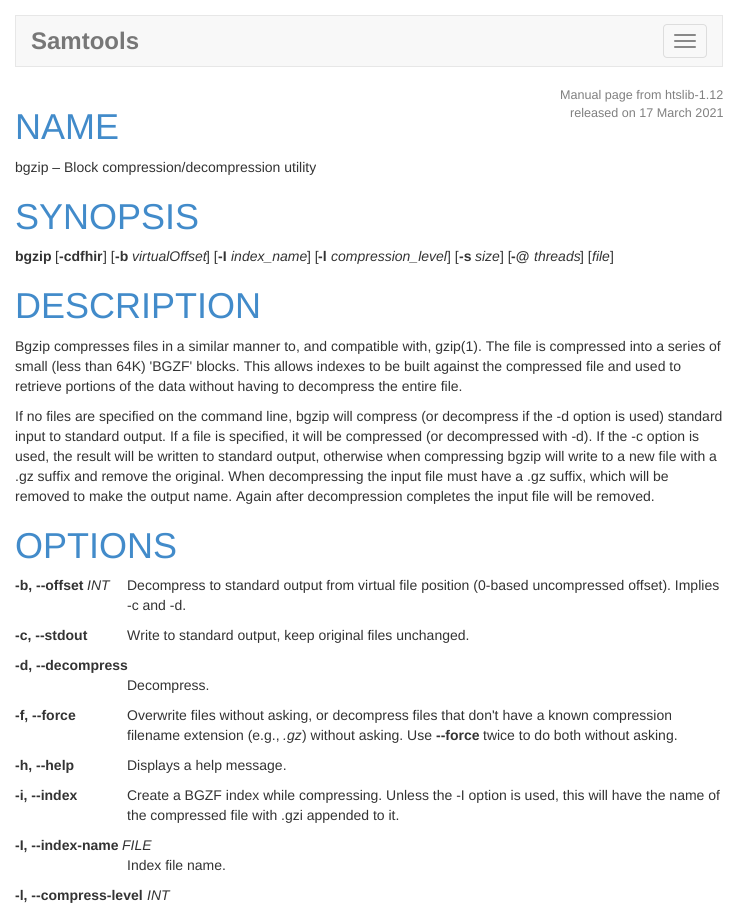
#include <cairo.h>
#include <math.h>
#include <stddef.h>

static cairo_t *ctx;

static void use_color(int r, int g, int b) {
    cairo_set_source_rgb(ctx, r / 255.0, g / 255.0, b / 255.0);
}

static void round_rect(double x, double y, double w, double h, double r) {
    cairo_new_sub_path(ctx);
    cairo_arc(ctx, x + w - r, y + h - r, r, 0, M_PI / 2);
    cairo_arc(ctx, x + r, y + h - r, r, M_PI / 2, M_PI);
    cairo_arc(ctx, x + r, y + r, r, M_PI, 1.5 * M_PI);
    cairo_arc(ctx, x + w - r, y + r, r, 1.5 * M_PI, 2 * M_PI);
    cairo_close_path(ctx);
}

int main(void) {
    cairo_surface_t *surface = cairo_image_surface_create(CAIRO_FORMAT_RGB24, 738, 910);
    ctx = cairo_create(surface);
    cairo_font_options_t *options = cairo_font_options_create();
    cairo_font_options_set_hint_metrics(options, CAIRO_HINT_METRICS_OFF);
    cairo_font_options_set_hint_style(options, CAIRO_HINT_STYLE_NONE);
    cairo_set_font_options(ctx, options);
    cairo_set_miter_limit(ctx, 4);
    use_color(255, 255, 255);
    cairo_paint(ctx);
    use_color(248, 248, 248);
    cairo_rectangle(ctx, 15.5, 15.5, 707, 51);
    cairo_fill_preserve(ctx);
    use_color(231, 231, 231);
    cairo_set_line_width(ctx, 1);
    cairo_stroke(ctx);
    cairo_select_font_face(ctx, "Liberation Sans", CAIRO_FONT_SLANT_NORMAL, CAIRO_FONT_WEIGHT_BOLD);
    cairo_set_font_size(ctx, 24);
    use_color(119, 119, 119);
    cairo_move_to(ctx, 31, 49);
    cairo_show_text(ctx, "Samtools");
    round_rect(663.5, 24.5, 43, 33, 3.5);
    use_color(221, 221, 221);
    cairo_stroke(ctx);
    use_color(136, 136, 136);
    round_rect(674, 34, 22, 2, 1);
    cairo_fill(ctx);
    round_rect(674, 40, 22, 2, 1);
    cairo_fill(ctx);
    round_rect(674, 46, 22, 2, 1);
    cairo_fill(ctx);
    cairo_select_font_face(ctx, "Liberation Sans", CAIRO_FONT_SLANT_NORMAL, CAIRO_FONT_WEIGHT_NORMAL);
    cairo_set_font_size(ctx, 12.6);
    use_color(128, 128, 128);
    cairo_move_to(ctx, 560, 99);
    cairo_show_text(ctx, "Manual page from htslib-1.12");
    cairo_move_to(ctx, 570, 117);
    cairo_show_text(ctx, "released on 17 March 2021");
    cairo_set_font_size(ctx, 36);
    use_color(66, 139, 202);
    cairo_move_to(ctx, 15, 139);
    cairo_show_text(ctx, "NAME");
    cairo_set_font_size(ctx, 14);
    use_color(51, 51, 51);
    cairo_move_to(ctx, 15, 172);
    cairo_show_text(ctx, "bgzip – Block compression/decompression utility");
    cairo_set_font_size(ctx, 36);
    use_color(66, 139, 202);
    cairo_move_to(ctx, 15, 229);
    cairo_show_text(ctx, "SYNOPSIS");
    cairo_select_font_face(ctx, "Liberation Sans", CAIRO_FONT_SLANT_NORMAL, CAIRO_FONT_WEIGHT_BOLD);
    cairo_set_font_size(ctx, 14);
    use_color(51, 51, 51);
    cairo_move_to(ctx, 15, 261);
    cairo_show_text(ctx, "bgzip");
    cairo_select_font_face(ctx, "Liberation Sans", CAIRO_FONT_SLANT_NORMAL, CAIRO_FONT_WEIGHT_NORMAL);
    cairo_move_to(ctx, 55, 261);
    cairo_show_text(ctx, "[");
    cairo_select_font_face(ctx, "Liberation Sans", CAIRO_FONT_SLANT_NORMAL, CAIRO_FONT_WEIGHT_BOLD);
    cairo_move_to(ctx, 59, 261);
    cairo_show_text(ctx, "-cdfhir");
    cairo_select_font_face(ctx, "Liberation Sans", CAIRO_FONT_SLANT_NORMAL, CAIRO_FONT_WEIGHT_NORMAL);
    cairo_move_to(ctx, 103, 261);
    cairo_show_text(ctx, "] [");
    cairo_select_font_face(ctx, "Liberation Sans", CAIRO_FONT_SLANT_NORMAL, CAIRO_FONT_WEIGHT_BOLD);
    cairo_move_to(ctx, 115, 261);
    cairo_show_text(ctx, "-b");
    cairo_select_font_face(ctx, "Liberation Sans", CAIRO_FONT_SLANT_ITALIC, CAIRO_FONT_WEIGHT_NORMAL);
    cairo_move_to(ctx, 132, 261);
    cairo_show_text(ctx, "virtualOffset");
    cairo_select_font_face(ctx, "Liberation Sans", CAIRO_FONT_SLANT_NORMAL, CAIRO_FONT_WEIGHT_NORMAL);
    cairo_move_to(ctx, 206, 261);
    cairo_show_text(ctx, "] [");
    cairo_select_font_face(ctx, "Liberation Sans", CAIRO_FONT_SLANT_NORMAL, CAIRO_FONT_WEIGHT_BOLD);
    cairo_move_to(ctx, 218, 261);
    cairo_show_text(ctx, "-I");
    cairo_select_font_face(ctx, "Liberation Sans", CAIRO_FONT_SLANT_ITALIC, CAIRO_FONT_WEIGHT_NORMAL);
    cairo_move_to(ctx, 231, 261);
    cairo_show_text(ctx, "index_name");
    cairo_select_font_face(ctx, "Liberation Sans", CAIRO_FONT_SLANT_NORMAL, CAIRO_FONT_WEIGHT_NORMAL);
    cairo_move_to(ctx, 307, 261);
    cairo_show_text(ctx, "] [");
    cairo_select_font_face(ctx, "Liberation Sans", CAIRO_FONT_SLANT_NORMAL, CAIRO_FONT_WEIGHT_BOLD);
    cairo_move_to(ctx, 318, 261);
    cairo_show_text(ctx, "-l");
    cairo_select_font_face(ctx, "Liberation Sans", CAIRO_FONT_SLANT_ITALIC, CAIRO_FONT_WEIGHT_NORMAL);
    cairo_move_to(ctx, 331, 261);
    cairo_show_text(ctx, "compression_level");
    cairo_select_font_face(ctx, "Liberation Sans", CAIRO_FONT_SLANT_NORMAL, CAIRO_FONT_WEIGHT_NORMAL);
    cairo_move_to(ctx, 447, 261);
    cairo_show_text(ctx, "] [");
    cairo_select_font_face(ctx, "Liberation Sans", CAIRO_FONT_SLANT_NORMAL, CAIRO_FONT_WEIGHT_BOLD);
    cairo_move_to(ctx, 459, 261);
    cairo_show_text(ctx, "-s");
    cairo_select_font_face(ctx, "Liberation Sans", CAIRO_FONT_SLANT_ITALIC, CAIRO_FONT_WEIGHT_NORMAL);
    cairo_move_to(ctx, 475, 261);
    cairo_show_text(ctx, "size");
    cairo_select_font_face(ctx, "Liberation Sans", CAIRO_FONT_SLANT_NORMAL, CAIRO_FONT_WEIGHT_NORMAL);
    cairo_move_to(ctx, 500, 261);
    cairo_show_text(ctx, "] [");
    cairo_select_font_face(ctx, "Liberation Sans", CAIRO_FONT_SLANT_NORMAL, CAIRO_FONT_WEIGHT_BOLD);
    cairo_move_to(ctx, 511, 261);
    cairo_show_text(ctx, "-@");
    cairo_select_font_face(ctx, "Liberation Sans", CAIRO_FONT_SLANT_ITALIC, CAIRO_FONT_WEIGHT_NORMAL);
    cairo_move_to(ctx, 534, 261);
    cairo_show_text(ctx, "threads");
    cairo_select_font_face(ctx, "Liberation Sans", CAIRO_FONT_SLANT_NORMAL, CAIRO_FONT_WEIGHT_NORMAL);
    cairo_move_to(ctx, 580, 261);
    cairo_show_text(ctx, "] [");
    cairo_select_font_face(ctx, "Liberation Sans", CAIRO_FONT_SLANT_ITALIC, CAIRO_FONT_WEIGHT_NORMAL);
    cairo_move_to(ctx, 592, 261);
    cairo_show_text(ctx, "file");
    cairo_select_font_face(ctx, "Liberation Sans", CAIRO_FONT_SLANT_NORMAL, CAIRO_FONT_WEIGHT_NORMAL);
    cairo_move_to(ctx, 610, 261);
    cairo_show_text(ctx, "]");
    cairo_set_font_size(ctx, 36);
    use_color(66, 139, 202);
    cairo_move_to(ctx, 15, 318);
    cairo_show_text(ctx, "DESCRIPTION");
    cairo_set_font_size(ctx, 14);
    use_color(51, 51, 51);
    cairo_move_to(ctx, 15, 351);
    cairo_show_text(ctx, "Bgzip compresses files in a similar manner to, and compatible with, gzip(1). The file is compressed into a series of");
    cairo_move_to(ctx, 15, 371);
    cairo_show_text(ctx, "small (less than 64K) 'BGZF' blocks. This allows indexes to be built against the compressed file and used to");
    cairo_move_to(ctx, 15, 391);
    cairo_show_text(ctx, "retrieve portions of the data without having to decompress the entire file.");
    cairo_move_to(ctx, 15, 421);
    cairo_show_text(ctx, "If no files are specified on the command line, bgzip will compress (or decompress if the -d option is used) standard");
    cairo_move_to(ctx, 15, 441);
    cairo_show_text(ctx, "input to standard output. If a file is specified, it will be compressed (or decompressed with -d). If the -c option is");
    cairo_move_to(ctx, 15, 461);
    cairo_show_text(ctx, "used, the result will be written to standard output, otherwise when compressing bgzip will write to a new file with a");
    cairo_move_to(ctx, 15, 481);
    cairo_show_text(ctx, ".gz suffix and remove the original. When decompressing the input file must have a .gz suffix, which will be");
    cairo_move_to(ctx, 15, 501);
    cairo_show_text(ctx, "removed to make the output name. Again after decompression completes the input file will be removed.");
    cairo_set_font_size(ctx, 36);
    use_color(66, 139, 202);
    cairo_move_to(ctx, 15, 558);
    cairo_show_text(ctx, "OPTIONS");
    cairo_select_font_face(ctx, "Liberation Sans", CAIRO_FONT_SLANT_NORMAL, CAIRO_FONT_WEIGHT_BOLD);
    cairo_set_font_size(ctx, 14);
    use_color(51, 51, 51);
    cairo_move_to(ctx, 15, 590);
    cairo_show_text(ctx, "-b, --offset");
    cairo_select_font_face(ctx, "Liberation Sans", CAIRO_FONT_SLANT_ITALIC, CAIRO_FONT_WEIGHT_NORMAL);
    cairo_move_to(ctx, 87, 590);
    cairo_show_text(ctx, "INT");
    cairo_select_font_face(ctx, "Liberation Sans", CAIRO_FONT_SLANT_NORMAL, CAIRO_FONT_WEIGHT_NORMAL);
    cairo_move_to(ctx, 127, 590);
    cairo_show_text(ctx, "Decompress to standard output from virtual file position (0-based uncompressed offset). Implies");
    cairo_move_to(ctx, 127, 610);
    cairo_show_text(ctx, "-c and -d.");
    cairo_select_font_face(ctx, "Liberation Sans", CAIRO_FONT_SLANT_NORMAL, CAIRO_FONT_WEIGHT_BOLD);
    cairo_move_to(ctx, 15, 640);
    cairo_show_text(ctx, "-c, --stdout");
    cairo_select_font_face(ctx, "Liberation Sans", CAIRO_FONT_SLANT_NORMAL, CAIRO_FONT_WEIGHT_NORMAL);
    cairo_move_to(ctx, 127, 640);
    cairo_show_text(ctx, "Write to standard output, keep original files unchanged.");
    cairo_select_font_face(ctx, "Liberation Sans", CAIRO_FONT_SLANT_NORMAL, CAIRO_FONT_WEIGHT_BOLD);
    cairo_move_to(ctx, 15, 670);
    cairo_show_text(ctx, "-d, --decompress");
    cairo_select_font_face(ctx, "Liberation Sans", CAIRO_FONT_SLANT_NORMAL, CAIRO_FONT_WEIGHT_NORMAL);
    cairo_move_to(ctx, 127, 690);
    cairo_show_text(ctx, "Decompress.");
    cairo_select_font_face(ctx, "Liberation Sans", CAIRO_FONT_SLANT_NORMAL, CAIRO_FONT_WEIGHT_BOLD);
    cairo_move_to(ctx, 15, 720);
    cairo_show_text(ctx, "-f, --force");
    cairo_select_font_face(ctx, "Liberation Sans", CAIRO_FONT_SLANT_NORMAL, CAIRO_FONT_WEIGHT_NORMAL);
    cairo_move_to(ctx, 127, 720);
    cairo_show_text(ctx, "Overwrite files without asking, or decompress files that don't have a known compression");
    cairo_move_to(ctx, 127, 740);
    cairo_show_text(ctx, "filename extension (e.g.,");
    cairo_select_font_face(ctx, "Liberation Sans", CAIRO_FONT_SLANT_ITALIC, CAIRO_FONT_WEIGHT_NORMAL);
    cairo_move_to(ctx, 283, 740);
    cairo_show_text(ctx, ".gz");
    cairo_select_font_face(ctx, "Liberation Sans", CAIRO_FONT_SLANT_NORMAL, CAIRO_FONT_WEIGHT_NORMAL);
    cairo_move_to(ctx, 302, 740);
    cairo_show_text(ctx, ") without asking. Use");
    cairo_select_font_face(ctx, "Liberation Sans", CAIRO_FONT_SLANT_NORMAL, CAIRO_FONT_WEIGHT_BOLD);
    cairo_move_to(ctx, 436, 740);
    cairo_show_text(ctx, "--force");
    cairo_select_font_face(ctx, "Liberation Sans", CAIRO_FONT_SLANT_NORMAL, CAIRO_FONT_WEIGHT_NORMAL);
    cairo_move_to(ctx, 483, 740);
    cairo_show_text(ctx, "twice to do both without asking.");
    cairo_select_font_face(ctx, "Liberation Sans", CAIRO_FONT_SLANT_NORMAL, CAIRO_FONT_WEIGHT_BOLD);
    cairo_move_to(ctx, 15, 770);
    cairo_show_text(ctx, "-h, --help");
    cairo_select_font_face(ctx, "Liberation Sans", CAIRO_FONT_SLANT_NORMAL, CAIRO_FONT_WEIGHT_NORMAL);
    cairo_move_to(ctx, 127, 770);
    cairo_show_text(ctx, "Displays a help message.");
    cairo_select_font_face(ctx, "Liberation Sans", CAIRO_FONT_SLANT_NORMAL, CAIRO_FONT_WEIGHT_BOLD);
    cairo_move_to(ctx, 15, 800);
    cairo_show_text(ctx, "-i, --index");
    cairo_select_font_face(ctx, "Liberation Sans", CAIRO_FONT_SLANT_NORMAL, CAIRO_FONT_WEIGHT_NORMAL);
    cairo_move_to(ctx, 127, 800);
    cairo_show_text(ctx, "Create a BGZF index while compressing. Unless the -I option is used, this will have the name of");
    cairo_move_to(ctx, 127, 820);
    cairo_show_text(ctx, "the compressed file with .gzi appended to it.");
    cairo_select_font_face(ctx, "Liberation Sans", CAIRO_FONT_SLANT_NORMAL, CAIRO_FONT_WEIGHT_BOLD);
    cairo_move_to(ctx, 15, 850);
    cairo_show_text(ctx, "-I, --index-name");
    cairo_select_font_face(ctx, "Liberation Sans", CAIRO_FONT_SLANT_ITALIC, CAIRO_FONT_WEIGHT_NORMAL);
    cairo_move_to(ctx, 122, 850);
    cairo_show_text(ctx, "FILE");
    cairo_select_font_face(ctx, "Liberation Sans", CAIRO_FONT_SLANT_NORMAL, CAIRO_FONT_WEIGHT_NORMAL);
    cairo_move_to(ctx, 127, 870);
    cairo_show_text(ctx, "Index file name.");
    cairo_select_font_face(ctx, "Liberation Sans", CAIRO_FONT_SLANT_NORMAL, CAIRO_FONT_WEIGHT_BOLD);
    cairo_move_to(ctx, 15, 900);
    cairo_show_text(ctx, "-l, --compress-level");
    cairo_select_font_face(ctx, "Liberation Sans", CAIRO_FONT_SLANT_ITALIC, CAIRO_FONT_WEIGHT_NORMAL);
    cairo_move_to(ctx, 147, 900);
    cairo_show_text(ctx, "INT");
    cairo_surface_write_to_png(surface, "result.png");
    cairo_font_options_destroy(options);
    cairo_destroy(ctx);
    cairo_surface_destroy(surface);
    return 0;
}
